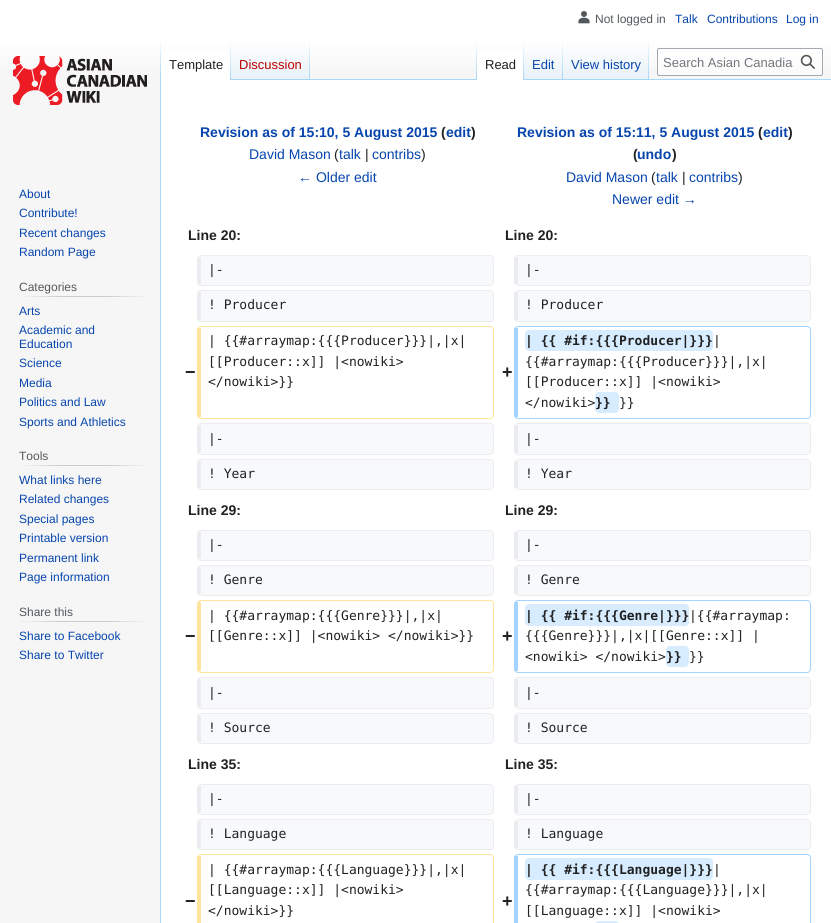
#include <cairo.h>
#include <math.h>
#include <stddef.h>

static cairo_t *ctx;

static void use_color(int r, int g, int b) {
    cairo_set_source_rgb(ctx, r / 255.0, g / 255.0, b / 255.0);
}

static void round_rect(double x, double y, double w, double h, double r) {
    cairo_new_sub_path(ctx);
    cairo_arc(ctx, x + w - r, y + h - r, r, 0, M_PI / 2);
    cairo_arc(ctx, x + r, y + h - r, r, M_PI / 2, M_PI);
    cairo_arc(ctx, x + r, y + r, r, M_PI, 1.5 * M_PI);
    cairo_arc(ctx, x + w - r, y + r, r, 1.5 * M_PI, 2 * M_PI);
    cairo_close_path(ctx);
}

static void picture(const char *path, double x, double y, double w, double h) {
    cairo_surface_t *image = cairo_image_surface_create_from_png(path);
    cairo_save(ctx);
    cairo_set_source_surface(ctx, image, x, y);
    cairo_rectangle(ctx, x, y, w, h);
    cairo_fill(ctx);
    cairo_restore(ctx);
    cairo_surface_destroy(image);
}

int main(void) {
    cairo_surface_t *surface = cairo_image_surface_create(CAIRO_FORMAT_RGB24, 831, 923);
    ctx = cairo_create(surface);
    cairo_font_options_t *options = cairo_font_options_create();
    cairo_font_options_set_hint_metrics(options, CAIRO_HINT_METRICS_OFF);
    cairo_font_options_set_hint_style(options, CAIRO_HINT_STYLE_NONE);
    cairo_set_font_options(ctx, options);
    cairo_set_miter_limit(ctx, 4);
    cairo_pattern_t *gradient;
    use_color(246, 246, 246);
    cairo_paint(ctx);
    gradient = cairo_pattern_create_linear(416, 0, 416, 80);
    cairo_pattern_add_color_stop_rgba(gradient, 0.5, 1, 1, 1, 1);
    cairo_pattern_add_color_stop_rgba(gradient, 1, 0.965, 0.965, 0.965, 1);
    cairo_set_source(ctx, gradient);
    cairo_pattern_destroy(gradient);
    cairo_rectangle(ctx, 0, 0, 831, 69);
    cairo_fill(ctx);
    picture("img1.png", 578, 11, 12, 13);
    cairo_select_font_face(ctx, "Liberation Sans", CAIRO_FONT_SLANT_NORMAL, CAIRO_FONT_WEIGHT_NORMAL);
    cairo_set_font_size(ctx, 12);
    use_color(84, 89, 93);
    cairo_move_to(ctx, 595, 23);
    cairo_show_text(ctx, "Not logged in");
    use_color(6, 69, 173);
    cairo_move_to(ctx, 675, 23);
    cairo_show_text(ctx, "Talk");
    cairo_move_to(ctx, 707, 23);
    cairo_show_text(ctx, "Contributions");
    cairo_move_to(ctx, 786, 23);
    cairo_show_text(ctx, "Log in");
    use_color(167, 215, 249);
    cairo_rectangle(ctx, 160, 79, 1, 844);
    cairo_fill(ctx);
    gradient = cairo_pattern_create_linear(161, 40, 161, 80);
    cairo_pattern_add_color_stop_rgba(gradient, 0, 0.655, 0.843, 0.976, 0);
    cairo_pattern_add_color_stop_rgba(gradient, 1, 0.655, 0.843, 0.976, 1);
    cairo_set_source(ctx, gradient);
    cairo_pattern_destroy(gradient);
    cairo_rectangle(ctx, 160, 40, 1, 40);
    cairo_fill(ctx);
    use_color(255, 255, 255);
    cairo_rectangle(ctx, 161, 51, 69, 29);
    cairo_fill(ctx);
    gradient = cairo_pattern_create_linear(231, 40, 231, 80);
    cairo_pattern_add_color_stop_rgba(gradient, 0, 1, 1, 1, 1);
    cairo_pattern_add_color_stop_rgba(gradient, 1, 0.655, 0.843, 0.976, 1);
    cairo_set_source(ctx, gradient);
    cairo_pattern_destroy(gradient);
    cairo_rectangle(ctx, 230, 40, 1, 40);
    cairo_fill(ctx);
    cairo_set_font_size(ctx, 13);
    use_color(32, 33, 34);
    cairo_move_to(ctx, 169, 69);
    cairo_show_text(ctx, "Template");
    gradient = cairo_pattern_create_linear(271, 80, 271, 40);
    cairo_pattern_add_color_stop_rgba(gradient, 0, 0.467, 0.757, 0.965, 1);
    cairo_pattern_add_color_stop_rgba(gradient, 0.03, 0.91, 0.949, 0.973, 1);
    cairo_pattern_add_color_stop_rgba(gradient, 1, 1, 1, 1, 1);
    cairo_set_source(ctx, gradient);
    cairo_pattern_destroy(gradient);
    cairo_rectangle(ctx, 231, 46, 79, 34);
    cairo_fill(ctx);
    gradient = cairo_pattern_create_linear(310, 40, 310, 80);
    cairo_pattern_add_color_stop_rgba(gradient, 0, 0.655, 0.843, 0.976, 0);
    cairo_pattern_add_color_stop_rgba(gradient, 1, 0.655, 0.843, 0.976, 1);
    cairo_set_source(ctx, gradient);
    cairo_pattern_destroy(gradient);
    cairo_rectangle(ctx, 309, 40, 1, 40);
    cairo_fill(ctx);
    use_color(186, 0, 0);
    cairo_move_to(ctx, 239, 69);
    cairo_show_text(ctx, "Discussion");
    use_color(167, 215, 249);
    cairo_rectangle(ctx, 310, 79, 521, 1);
    cairo_fill(ctx);
    gradient = cairo_pattern_create_linear(477, 40, 477, 80);
    cairo_pattern_add_color_stop_rgba(gradient, 0, 0.655, 0.843, 0.976, 0);
    cairo_pattern_add_color_stop_rgba(gradient, 1, 0.655, 0.843, 0.976, 1);
    cairo_set_source(ctx, gradient);
    cairo_pattern_destroy(gradient);
    cairo_rectangle(ctx, 476, 40, 1, 40);
    cairo_fill(ctx);
    use_color(255, 255, 255);
    cairo_rectangle(ctx, 477, 51, 46, 29);
    cairo_fill(ctx);
    gradient = cairo_pattern_create_linear(524, 40, 524, 80);
    cairo_pattern_add_color_stop_rgba(gradient, 0, 1, 1, 1, 1);
    cairo_pattern_add_color_stop_rgba(gradient, 1, 0.655, 0.843, 0.976, 1);
    cairo_set_source(ctx, gradient);
    cairo_pattern_destroy(gradient);
    cairo_rectangle(ctx, 523, 40, 1, 40);
    cairo_fill(ctx);
    use_color(32, 33, 34);
    cairo_move_to(ctx, 485, 69);
    cairo_show_text(ctx, "Read");
    gradient = cairo_pattern_create_linear(544, 80, 544, 40);
    cairo_pattern_add_color_stop_rgba(gradient, 0, 0.467, 0.757, 0.965, 1);
    cairo_pattern_add_color_stop_rgba(gradient, 0.03, 0.91, 0.949, 0.973, 1);
    cairo_pattern_add_color_stop_rgba(gradient, 1, 1, 1, 1, 1);
    cairo_set_source(ctx, gradient);
    cairo_pattern_destroy(gradient);
    cairo_rectangle(ctx, 524, 46, 39, 33);
    cairo_fill(ctx);
    gradient = cairo_pattern_create_linear(563, 40, 563, 80);
    cairo_pattern_add_color_stop_rgba(gradient, 0, 0.655, 0.843, 0.976, 0);
    cairo_pattern_add_color_stop_rgba(gradient, 1, 0.655, 0.843, 0.976, 1);
    cairo_set_source(ctx, gradient);
    cairo_pattern_destroy(gradient);
    cairo_rectangle(ctx, 562, 40, 1, 40);
    cairo_fill(ctx);
    use_color(6, 69, 173);
    cairo_move_to(ctx, 532, 69);
    cairo_show_text(ctx, "Edit");
    gradient = cairo_pattern_create_linear(606, 80, 606, 40);
    cairo_pattern_add_color_stop_rgba(gradient, 0, 0.467, 0.757, 0.965, 1);
    cairo_pattern_add_color_stop_rgba(gradient, 0.03, 0.91, 0.949, 0.973, 1);
    cairo_pattern_add_color_stop_rgba(gradient, 1, 1, 1, 1, 1);
    cairo_set_source(ctx, gradient);
    cairo_pattern_destroy(gradient);
    cairo_rectangle(ctx, 563, 46, 86, 33);
    cairo_fill(ctx);
    gradient = cairo_pattern_create_linear(649, 40, 649, 80);
    cairo_pattern_add_color_stop_rgba(gradient, 0, 0.655, 0.843, 0.976, 0);
    cairo_pattern_add_color_stop_rgba(gradient, 1, 0.655, 0.843, 0.976, 1);
    cairo_set_source(ctx, gradient);
    cairo_pattern_destroy(gradient);
    cairo_rectangle(ctx, 648, 40, 1, 40);
    cairo_fill(ctx);
    use_color(6, 69, 173);
    cairo_move_to(ctx, 571, 69);
    cairo_show_text(ctx, "View history");
    cairo_set_source_rgba(ctx, 1, 1, 1, 0.5);
    round_rect(657.5, 48.5, 165, 27, 1.5);
    cairo_fill_preserve(ctx);
    use_color(162, 169, 177);
    cairo_set_line_width(ctx, 1);
    cairo_stroke(ctx);
    use_color(114, 119, 125);
    cairo_move_to(ctx, 663, 67);
    cairo_show_text(ctx, "Search Asian Canadia");
    picture("img2.png", 800, 54, 15, 15);
    picture("img3.png", 13, 56, 134, 49);
    cairo_set_font_size(ctx, 12);
    use_color(6, 69, 173);
    cairo_move_to(ctx, 19, 198);
    cairo_show_text(ctx, "About");
    cairo_move_to(ctx, 19, 217);
    cairo_show_text(ctx, "Contribute!");
    cairo_move_to(ctx, 19, 237);
    cairo_show_text(ctx, "Recent changes");
    cairo_move_to(ctx, 19, 256);
    cairo_show_text(ctx, "Random Page");
    gradient = cairo_pattern_create_linear(19, 297, 150, 297);
    cairo_pattern_add_color_stop_rgba(gradient, 0, 0.965, 0.965, 0.965, 1);
    cairo_pattern_add_color_stop_rgba(gradient, 0.33, 0.784, 0.8, 0.82, 1);
    cairo_pattern_add_color_stop_rgba(gradient, 0.66, 0.784, 0.8, 0.82, 1);
    cairo_pattern_add_color_stop_rgba(gradient, 1, 0.965, 0.965, 0.965, 1);
    cairo_set_source(ctx, gradient);
    cairo_pattern_destroy(gradient);
    cairo_rectangle(ctx, 19, 296, 131, 1);
    cairo_fill(ctx);
    use_color(84, 89, 93);
    cairo_move_to(ctx, 19, 291);
    cairo_show_text(ctx, "Categories");
    use_color(6, 69, 173);
    cairo_move_to(ctx, 19, 315);
    cairo_show_text(ctx, "Arts");
    cairo_move_to(ctx, 19, 334);
    cairo_show_text(ctx, "Academic and");
    cairo_move_to(ctx, 19, 348);
    cairo_show_text(ctx, "Education");
    cairo_move_to(ctx, 19, 367);
    cairo_show_text(ctx, "Science");
    cairo_move_to(ctx, 19, 387);
    cairo_show_text(ctx, "Media");
    cairo_move_to(ctx, 19, 406);
    cairo_show_text(ctx, "Politics and Law");
    cairo_move_to(ctx, 19, 426);
    cairo_show_text(ctx, "Sports and Athletics");
    gradient = cairo_pattern_create_linear(19, 466, 150, 466);
    cairo_pattern_add_color_stop_rgba(gradient, 0, 0.965, 0.965, 0.965, 1);
    cairo_pattern_add_color_stop_rgba(gradient, 0.33, 0.784, 0.8, 0.82, 1);
    cairo_pattern_add_color_stop_rgba(gradient, 0.66, 0.784, 0.8, 0.82, 1);
    cairo_pattern_add_color_stop_rgba(gradient, 1, 0.965, 0.965, 0.965, 1);
    cairo_set_source(ctx, gradient);
    cairo_pattern_destroy(gradient);
    cairo_rectangle(ctx, 19, 465, 131, 1);
    cairo_fill(ctx);
    use_color(84, 89, 93);
    cairo_move_to(ctx, 19, 460);
    cairo_show_text(ctx, "Tools");
    use_color(6, 69, 173);
    cairo_move_to(ctx, 19, 484);
    cairo_show_text(ctx, "What links here");
    cairo_move_to(ctx, 19, 503);
    cairo_show_text(ctx, "Related changes");
    cairo_move_to(ctx, 19, 523);
    cairo_show_text(ctx, "Special pages");
    cairo_move_to(ctx, 19, 542);
    cairo_show_text(ctx, "Printable version");
    cairo_move_to(ctx, 19, 562);
    cairo_show_text(ctx, "Permanent link");
    cairo_move_to(ctx, 19, 581);
    cairo_show_text(ctx, "Page information");
    gradient = cairo_pattern_create_linear(19, 622, 150, 622);
    cairo_pattern_add_color_stop_rgba(gradient, 0, 0.965, 0.965, 0.965, 1);
    cairo_pattern_add_color_stop_rgba(gradient, 0.33, 0.784, 0.8, 0.82, 1);
    cairo_pattern_add_color_stop_rgba(gradient, 0.66, 0.784, 0.8, 0.82, 1);
    cairo_pattern_add_color_stop_rgba(gradient, 1, 0.965, 0.965, 0.965, 1);
    cairo_set_source(ctx, gradient);
    cairo_pattern_destroy(gradient);
    cairo_rectangle(ctx, 19, 621, 131, 1);
    cairo_fill(ctx);
    use_color(84, 89, 93);
    cairo_move_to(ctx, 19, 616);
    cairo_show_text(ctx, "Share this");
    use_color(6, 69, 173);
    cairo_move_to(ctx, 19, 640);
    cairo_show_text(ctx, "Share to Facebook");
    cairo_move_to(ctx, 19, 659);
    cairo_show_text(ctx, "Share to Twitter");
    use_color(255, 255, 255);
    cairo_rectangle(ctx, 161, 80, 670, 843);
    cairo_fill(ctx);
    cairo_select_font_face(ctx, "Liberation Sans", CAIRO_FONT_SLANT_NORMAL, CAIRO_FONT_WEIGHT_BOLD);
    cairo_set_font_size(ctx, 14);
    use_color(6, 69, 173);
    cairo_move_to(ctx, 200, 137);
    cairo_show_text(ctx, "Revision as of 15:10, 5 August 2015");
    use_color(32, 33, 34);
    cairo_move_to(ctx, 441, 137);
    cairo_show_text(ctx, "(");
    use_color(6, 69, 173);
    cairo_move_to(ctx, 446, 137);
    cairo_show_text(ctx, "edit");
    use_color(32, 33, 34);
    cairo_move_to(ctx, 471, 137);
    cairo_show_text(ctx, ")");
    cairo_select_font_face(ctx, "Liberation Sans", CAIRO_FONT_SLANT_NORMAL, CAIRO_FONT_WEIGHT_NORMAL);
    use_color(6, 69, 173);
    cairo_move_to(ctx, 249, 159);
    cairo_show_text(ctx, "David Mason");
    use_color(32, 33, 34);
    cairo_move_to(ctx, 334, 159);
    cairo_show_text(ctx, "(");
    use_color(6, 69, 173);
    cairo_move_to(ctx, 339, 159);
    cairo_show_text(ctx, "talk");
    use_color(32, 33, 34);
    cairo_move_to(ctx, 365, 159);
    cairo_show_text(ctx, "|");
    use_color(6, 69, 173);
    cairo_move_to(ctx, 372, 159);
    cairo_show_text(ctx, "contribs");
    use_color(32, 33, 34);
    cairo_move_to(ctx, 421, 159);
    cairo_show_text(ctx, ")");
    use_color(6, 69, 173);
    cairo_move_to(ctx, 298, 182);
    cairo_show_text(ctx, "← Older edit");
    cairo_select_font_face(ctx, "Liberation Sans", CAIRO_FONT_SLANT_NORMAL, CAIRO_FONT_WEIGHT_BOLD);
    cairo_move_to(ctx, 517, 137);
    cairo_show_text(ctx, "Revision as of 15:11, 5 August 2015");
    use_color(32, 33, 34);
    cairo_move_to(ctx, 758, 137);
    cairo_show_text(ctx, "(");
    use_color(6, 69, 173);
    cairo_move_to(ctx, 763, 137);
    cairo_show_text(ctx, "edit");
    use_color(32, 33, 34);
    cairo_move_to(ctx, 788, 137);
    cairo_show_text(ctx, ")");
    cairo_move_to(ctx, 633, 159);
    cairo_show_text(ctx, "(");
    use_color(6, 69, 173);
    cairo_move_to(ctx, 637, 159);
    cairo_show_text(ctx, "undo");
    use_color(32, 33, 34);
    cairo_move_to(ctx, 672, 159);
    cairo_show_text(ctx, ")");
    cairo_select_font_face(ctx, "Liberation Sans", CAIRO_FONT_SLANT_NORMAL, CAIRO_FONT_WEIGHT_NORMAL);
    use_color(6, 69, 173);
    cairo_move_to(ctx, 566, 182);
    cairo_show_text(ctx, "David Mason");
    use_color(32, 33, 34);
    cairo_move_to(ctx, 651, 182);
    cairo_show_text(ctx, "(");
    use_color(6, 69, 173);
    cairo_move_to(ctx, 656, 182);
    cairo_show_text(ctx, "talk");
    use_color(32, 33, 34);
    cairo_move_to(ctx, 682, 182);
    cairo_show_text(ctx, "|");
    use_color(6, 69, 173);
    cairo_move_to(ctx, 689, 182);
    cairo_show_text(ctx, "contribs");
    use_color(32, 33, 34);
    cairo_move_to(ctx, 738, 182);
    cairo_show_text(ctx, ")");
    use_color(6, 69, 173);
    cairo_move_to(ctx, 612, 204);
    cairo_show_text(ctx, "Newer edit →");
    cairo_select_font_face(ctx, "Liberation Sans", CAIRO_FONT_SLANT_NORMAL, CAIRO_FONT_WEIGHT_BOLD);
    use_color(32, 33, 34);
    cairo_move_to(ctx, 188, 240);
    cairo_show_text(ctx, "Line 20:");
    cairo_move_to(ctx, 505, 240);
    cairo_show_text(ctx, "Line 20:");
    use_color(248, 249, 250);
    cairo_new_path(ctx);
    cairo_move_to(ctx, 201, 256);
    cairo_line_to(ctx, 491, 256);
    cairo_curve_to(ctx, 495, 258, 493, 267, 493, 270);
    cairo_line_to(ctx, 493, 278);
    cairo_curve_to(ctx, 493, 280, 494, 285, 490, 285);
    cairo_line_to(ctx, 201, 285);
    cairo_close_path(ctx);
    cairo_fill(ctx);
    round_rect(197.5, 255.5, 296, 30, 3.5);
    use_color(234, 236, 240);
    cairo_stroke(ctx);
    cairo_rectangle(ctx, 198, 257, 3, 27);
    cairo_fill(ctx);
    cairo_select_font_face(ctx, "DejaVu Sans Mono", CAIRO_FONT_SLANT_NORMAL, CAIRO_FONT_WEIGHT_NORMAL);
    cairo_set_font_size(ctx, 13);
    use_color(32, 33, 34);
    cairo_move_to(ctx, 208, 274);
    cairo_show_text(ctx, "|-");
    use_color(248, 249, 250);
    cairo_new_path(ctx);
    cairo_move_to(ctx, 518, 256);
    cairo_line_to(ctx, 808, 256);
    cairo_curve_to(ctx, 812, 258, 810, 267, 810, 270);
    cairo_line_to(ctx, 810, 278);
    cairo_curve_to(ctx, 810, 280, 811, 285, 807, 285);
    cairo_line_to(ctx, 518, 285);
    cairo_close_path(ctx);
    cairo_fill(ctx);
    round_rect(514.5, 255.5, 296, 30, 3.5);
    use_color(234, 236, 240);
    cairo_stroke(ctx);
    cairo_rectangle(ctx, 515, 257, 3, 27);
    cairo_fill(ctx);
    use_color(32, 33, 34);
    cairo_move_to(ctx, 525, 274);
    cairo_show_text(ctx, "|-");
    use_color(248, 249, 250);
    cairo_new_path(ctx);
    cairo_move_to(ctx, 201, 291);
    cairo_line_to(ctx, 490, 291);
    cairo_curve_to(ctx, 495, 292, 493, 299, 493, 302);
    cairo_line_to(ctx, 493, 310);
    cairo_curve_to(ctx, 493, 313, 495, 321, 490, 321);
    cairo_line_to(ctx, 201, 321);
    cairo_close_path(ctx);
    cairo_fill(ctx);
    round_rect(197.5, 290.5, 296, 31, 3.5);
    use_color(234, 236, 240);
    cairo_stroke(ctx);
    cairo_rectangle(ctx, 198, 292, 3, 28);
    cairo_fill(ctx);
    use_color(32, 33, 34);
    cairo_move_to(ctx, 208, 309);
    cairo_show_text(ctx, "! Producer");
    use_color(248, 249, 250);
    cairo_new_path(ctx);
    cairo_move_to(ctx, 518, 291);
    cairo_line_to(ctx, 807, 291);
    cairo_curve_to(ctx, 812, 292, 810, 299, 810, 302);
    cairo_line_to(ctx, 810, 310);
    cairo_curve_to(ctx, 810, 313, 812, 321, 807, 321);
    cairo_line_to(ctx, 518, 321);
    cairo_close_path(ctx);
    cairo_fill(ctx);
    round_rect(514.5, 290.5, 296, 31, 3.5);
    use_color(234, 236, 240);
    cairo_stroke(ctx);
    cairo_rectangle(ctx, 515, 292, 3, 28);
    cairo_fill(ctx);
    use_color(32, 33, 34);
    cairo_move_to(ctx, 525, 309);
    cairo_show_text(ctx, "! Producer");
    cairo_select_font_face(ctx, "Liberation Sans", CAIRO_FONT_SLANT_NORMAL, CAIRO_FONT_WEIGHT_BOLD);
    cairo_set_font_size(ctx, 18);
    cairo_move_to(ctx, 185, 378);
    cairo_show_text(ctx, "−");
    round_rect(197.5, 326.5, 296, 92, 3.5);
    use_color(255, 228, 156);
    cairo_stroke(ctx);
    cairo_rectangle(ctx, 198, 328, 3, 89);
    cairo_fill(ctx);
    cairo_select_font_face(ctx, "DejaVu Sans Mono", CAIRO_FONT_SLANT_NORMAL, CAIRO_FONT_WEIGHT_NORMAL);
    cairo_set_font_size(ctx, 13);
    use_color(32, 33, 34);
    cairo_move_to(ctx, 208, 345);
    cairo_show_text(ctx, "| {{#arraymap:{{{Producer}}}|,|x|");
    cairo_move_to(ctx, 208, 366);
    cairo_show_text(ctx, "[[Producer::x]] |<nowiki>");
    cairo_move_to(ctx, 208, 386);
    cairo_show_text(ctx, "</nowiki>}}");
    cairo_select_font_face(ctx, "Liberation Sans", CAIRO_FONT_SLANT_NORMAL, CAIRO_FONT_WEIGHT_BOLD);
    cairo_set_font_size(ctx, 18);
    cairo_move_to(ctx, 502, 378);
    cairo_show_text(ctx, "+");
    round_rect(514.5, 326.5, 296, 92, 3.5);
    use_color(163, 211, 255);
    cairo_stroke(ctx);
    cairo_rectangle(ctx, 515, 328, 3, 89);
    cairo_fill(ctx);
    use_color(216, 236, 255);
    round_rect(525, 330, 188, 21, 4);
    cairo_fill(ctx);
    cairo_select_font_face(ctx, "DejaVu Sans Mono", CAIRO_FONT_SLANT_NORMAL, CAIRO_FONT_WEIGHT_BOLD);
    cairo_set_font_size(ctx, 13);
    use_color(32, 33, 34);
    cairo_move_to(ctx, 525, 345);
    cairo_show_text(ctx, "| {{ #if:{{{Producer|}}}");
    cairo_select_font_face(ctx, "DejaVu Sans Mono", CAIRO_FONT_SLANT_NORMAL, CAIRO_FONT_WEIGHT_NORMAL);
    cairo_move_to(ctx, 713, 345);
    cairo_show_text(ctx, "|");
    cairo_move_to(ctx, 525, 366);
    cairo_show_text(ctx, "{{#arraymap:{{{Producer}}}|,|x|");
    cairo_move_to(ctx, 525, 386);
    cairo_show_text(ctx, "[[Producer::x]] |<nowiki>");
    cairo_move_to(ctx, 525, 407);
    cairo_show_text(ctx, "</nowiki>");
    use_color(216, 236, 255);
    round_rect(595, 392, 24, 21, 4);
    cairo_fill(ctx);
    cairo_select_font_face(ctx, "DejaVu Sans Mono", CAIRO_FONT_SLANT_NORMAL, CAIRO_FONT_WEIGHT_BOLD);
    use_color(32, 33, 34);
    cairo_move_to(ctx, 595, 407);
    cairo_show_text(ctx, "}}");
    cairo_select_font_face(ctx, "DejaVu Sans Mono", CAIRO_FONT_SLANT_NORMAL, CAIRO_FONT_WEIGHT_NORMAL);
    cairo_move_to(ctx, 619, 407);
    cairo_show_text(ctx, "}}");
    use_color(248, 249, 250);
    cairo_new_path(ctx);
    cairo_move_to(ctx, 201, 424);
    cairo_line_to(ctx, 490, 424);
    cairo_curve_to(ctx, 495, 425, 493, 432, 493, 435);
    cairo_line_to(ctx, 493, 443);
    cairo_curve_to(ctx, 493, 446, 495, 454, 490, 454);
    cairo_line_to(ctx, 201, 454);
    cairo_close_path(ctx);
    cairo_fill(ctx);
    round_rect(197.5, 423.5, 296, 31, 3.5);
    use_color(234, 236, 240);
    cairo_stroke(ctx);
    cairo_rectangle(ctx, 198, 425, 3, 28);
    cairo_fill(ctx);
    use_color(32, 33, 34);
    cairo_move_to(ctx, 208, 443);
    cairo_show_text(ctx, "|-");
    use_color(248, 249, 250);
    cairo_new_path(ctx);
    cairo_move_to(ctx, 518, 424);
    cairo_line_to(ctx, 807, 424);
    cairo_curve_to(ctx, 812, 425, 810, 432, 810, 435);
    cairo_line_to(ctx, 810, 443);
    cairo_curve_to(ctx, 810, 446, 812, 454, 807, 454);
    cairo_line_to(ctx, 518, 454);
    cairo_close_path(ctx);
    cairo_fill(ctx);
    round_rect(514.5, 423.5, 296, 31, 3.5);
    use_color(234, 236, 240);
    cairo_stroke(ctx);
    cairo_rectangle(ctx, 515, 425, 3, 28);
    cairo_fill(ctx);
    use_color(32, 33, 34);
    cairo_move_to(ctx, 525, 443);
    cairo_show_text(ctx, "|-");
    use_color(248, 249, 250);
    cairo_new_path(ctx);
    cairo_move_to(ctx, 201, 460);
    cairo_line_to(ctx, 491, 460);
    cairo_curve_to(ctx, 495, 462, 493, 471, 493, 474);
    cairo_line_to(ctx, 493, 482);
    cairo_curve_to(ctx, 493, 484, 494, 489, 490, 489);
    cairo_line_to(ctx, 201, 489);
    cairo_close_path(ctx);
    cairo_fill(ctx);
    round_rect(197.5, 459.5, 296, 30, 3.5);
    use_color(234, 236, 240);
    cairo_stroke(ctx);
    cairo_rectangle(ctx, 198, 461, 3, 27);
    cairo_fill(ctx);
    use_color(32, 33, 34);
    cairo_move_to(ctx, 208, 478);
    cairo_show_text(ctx, "! Year");
    use_color(248, 249, 250);
    cairo_new_path(ctx);
    cairo_move_to(ctx, 518, 460);
    cairo_line_to(ctx, 808, 460);
    cairo_curve_to(ctx, 812, 462, 810, 471, 810, 474);
    cairo_line_to(ctx, 810, 482);
    cairo_curve_to(ctx, 810, 484, 811, 489, 807, 489);
    cairo_line_to(ctx, 518, 489);
    cairo_close_path(ctx);
    cairo_fill(ctx);
    round_rect(514.5, 459.5, 296, 30, 3.5);
    use_color(234, 236, 240);
    cairo_stroke(ctx);
    cairo_rectangle(ctx, 515, 461, 3, 27);
    cairo_fill(ctx);
    use_color(32, 33, 34);
    cairo_move_to(ctx, 525, 478);
    cairo_show_text(ctx, "! Year");
    cairo_select_font_face(ctx, "Liberation Sans", CAIRO_FONT_SLANT_NORMAL, CAIRO_FONT_WEIGHT_BOLD);
    cairo_set_font_size(ctx, 14);
    cairo_move_to(ctx, 188, 515);
    cairo_show_text(ctx, "Line 29:");
    cairo_move_to(ctx, 505, 515);
    cairo_show_text(ctx, "Line 29:");
    use_color(248, 249, 250);
    cairo_new_path(ctx);
    cairo_move_to(ctx, 201, 531);
    cairo_line_to(ctx, 491, 531);
    cairo_curve_to(ctx, 495, 533, 493, 542, 493, 546);
    cairo_line_to(ctx, 493, 553);
    cairo_curve_to(ctx, 493, 555, 494, 560, 490, 560);
    cairo_line_to(ctx, 201, 560);
    cairo_close_path(ctx);
    cairo_fill(ctx);
    round_rect(197.5, 530.5, 296, 30, 3.5);
    use_color(234, 236, 240);
    cairo_stroke(ctx);
    cairo_rectangle(ctx, 198, 532, 3, 27);
    cairo_fill(ctx);
    cairo_select_font_face(ctx, "DejaVu Sans Mono", CAIRO_FONT_SLANT_NORMAL, CAIRO_FONT_WEIGHT_NORMAL);
    cairo_set_font_size(ctx, 13);
    use_color(32, 33, 34);
    cairo_move_to(ctx, 208, 549);
    cairo_show_text(ctx, "|-");
    use_color(248, 249, 250);
    cairo_new_path(ctx);
    cairo_move_to(ctx, 518, 531);
    cairo_line_to(ctx, 808, 531);
    cairo_curve_to(ctx, 812, 533, 810, 542, 810, 546);
    cairo_line_to(ctx, 810, 553);
    cairo_curve_to(ctx, 810, 555, 811, 560, 807, 560);
    cairo_line_to(ctx, 518, 560);
    cairo_close_path(ctx);
    cairo_fill(ctx);
    round_rect(514.5, 530.5, 296, 30, 3.5);
    use_color(234, 236, 240);
    cairo_stroke(ctx);
    cairo_rectangle(ctx, 515, 532, 3, 27);
    cairo_fill(ctx);
    use_color(32, 33, 34);
    cairo_move_to(ctx, 525, 549);
    cairo_show_text(ctx, "|-");
    use_color(248, 249, 250);
    cairo_new_path(ctx);
    cairo_move_to(ctx, 201, 566);
    cairo_line_to(ctx, 491, 566);
    cairo_curve_to(ctx, 495, 568, 493, 577, 493, 580);
    cairo_line_to(ctx, 493, 588);
    cairo_curve_to(ctx, 493, 590, 494, 595, 490, 595);
    cairo_line_to(ctx, 201, 595);
    cairo_close_path(ctx);
    cairo_fill(ctx);
    round_rect(197.5, 565.5, 296, 30, 3.5);
    use_color(234, 236, 240);
    cairo_stroke(ctx);
    cairo_rectangle(ctx, 198, 567, 3, 27);
    cairo_fill(ctx);
    use_color(32, 33, 34);
    cairo_move_to(ctx, 208, 584);
    cairo_show_text(ctx, "! Genre");
    use_color(248, 249, 250);
    cairo_new_path(ctx);
    cairo_move_to(ctx, 518, 566);
    cairo_line_to(ctx, 808, 566);
    cairo_curve_to(ctx, 812, 568, 810, 577, 810, 580);
    cairo_line_to(ctx, 810, 588);
    cairo_curve_to(ctx, 810, 590, 811, 595, 807, 595);
    cairo_line_to(ctx, 518, 595);
    cairo_close_path(ctx);
    cairo_fill(ctx);
    round_rect(514.5, 565.5, 296, 30, 3.5);
    use_color(234, 236, 240);
    cairo_stroke(ctx);
    cairo_rectangle(ctx, 515, 567, 3, 27);
    cairo_fill(ctx);
    use_color(32, 33, 34);
    cairo_move_to(ctx, 525, 584);
    cairo_show_text(ctx, "! Genre");
    cairo_select_font_face(ctx, "Liberation Sans", CAIRO_FONT_SLANT_NORMAL, CAIRO_FONT_WEIGHT_BOLD);
    cairo_set_font_size(ctx, 18);
    cairo_move_to(ctx, 185, 642);
    cairo_show_text(ctx, "−");
    round_rect(197.5, 600.5, 296, 72, 3.5);
    use_color(255, 228, 156);
    cairo_stroke(ctx);
    cairo_rectangle(ctx, 198, 602, 3, 69);
    cairo_fill(ctx);
    cairo_select_font_face(ctx, "DejaVu Sans Mono", CAIRO_FONT_SLANT_NORMAL, CAIRO_FONT_WEIGHT_NORMAL);
    cairo_set_font_size(ctx, 13);
    use_color(32, 33, 34);
    cairo_move_to(ctx, 208, 620);
    cairo_show_text(ctx, "| {{#arraymap:{{{Genre}}}|,|x|");
    cairo_move_to(ctx, 208, 640);
    cairo_show_text(ctx, "[[Genre::x]] |<nowiki> </nowiki>}}");
    cairo_select_font_face(ctx, "Liberation Sans", CAIRO_FONT_SLANT_NORMAL, CAIRO_FONT_WEIGHT_BOLD);
    cairo_set_font_size(ctx, 18);
    cairo_move_to(ctx, 502, 642);
    cairo_show_text(ctx, "+");
    round_rect(514.5, 600.5, 296, 72, 3.5);
    use_color(163, 211, 255);
    cairo_stroke(ctx);
    cairo_rectangle(ctx, 515, 602, 3, 69);
    cairo_fill(ctx);
    use_color(216, 236, 255);
    round_rect(525, 604, 164, 22, 4);
    cairo_fill(ctx);
    cairo_select_font_face(ctx, "DejaVu Sans Mono", CAIRO_FONT_SLANT_NORMAL, CAIRO_FONT_WEIGHT_BOLD);
    cairo_set_font_size(ctx, 13);
    use_color(32, 33, 34);
    cairo_move_to(ctx, 525, 620);
    cairo_show_text(ctx, "| {{ #if:{{{Genre|}}}");
    cairo_select_font_face(ctx, "DejaVu Sans Mono", CAIRO_FONT_SLANT_NORMAL, CAIRO_FONT_WEIGHT_NORMAL);
    cairo_move_to(ctx, 689, 620);
    cairo_show_text(ctx, "|{{#arraymap:");
    cairo_move_to(ctx, 525, 640);
    cairo_show_text(ctx, "{{{Genre}}}|,|x|[[Genre::x]] |");
    cairo_move_to(ctx, 525, 661);
    cairo_show_text(ctx, "<nowiki> </nowiki>");
    use_color(216, 236, 255);
    round_rect(666, 646, 23, 21, 4);
    cairo_fill(ctx);
    cairo_select_font_face(ctx, "DejaVu Sans Mono", CAIRO_FONT_SLANT_NORMAL, CAIRO_FONT_WEIGHT_BOLD);
    use_color(32, 33, 34);
    cairo_move_to(ctx, 666, 661);
    cairo_show_text(ctx, "}}");
    cairo_select_font_face(ctx, "DejaVu Sans Mono", CAIRO_FONT_SLANT_NORMAL, CAIRO_FONT_WEIGHT_NORMAL);
    cairo_move_to(ctx, 689, 661);
    cairo_show_text(ctx, "}}");
    use_color(248, 249, 250);
    cairo_new_path(ctx);
    cairo_move_to(ctx, 201, 678);
    cairo_line_to(ctx, 490, 678);
    cairo_curve_to(ctx, 495, 679, 493, 686, 493, 689);
    cairo_line_to(ctx, 493, 697);
    cairo_curve_to(ctx, 493, 700, 495, 708, 490, 708);
    cairo_line_to(ctx, 201, 708);
    cairo_close_path(ctx);
    cairo_fill(ctx);
    round_rect(197.5, 677.5, 296, 31, 3.5);
    use_color(234, 236, 240);
    cairo_stroke(ctx);
    cairo_rectangle(ctx, 198, 679, 3, 28);
    cairo_fill(ctx);
    use_color(32, 33, 34);
    cairo_move_to(ctx, 208, 697);
    cairo_show_text(ctx, "|-");
    use_color(248, 249, 250);
    cairo_new_path(ctx);
    cairo_move_to(ctx, 518, 678);
    cairo_line_to(ctx, 807, 678);
    cairo_curve_to(ctx, 812, 679, 810, 686, 810, 689);
    cairo_line_to(ctx, 810, 697);
    cairo_curve_to(ctx, 810, 700, 812, 708, 807, 708);
    cairo_line_to(ctx, 518, 708);
    cairo_close_path(ctx);
    cairo_fill(ctx);
    round_rect(514.5, 677.5, 296, 31, 3.5);
    use_color(234, 236, 240);
    cairo_stroke(ctx);
    cairo_rectangle(ctx, 515, 679, 3, 28);
    cairo_fill(ctx);
    use_color(32, 33, 34);
    cairo_move_to(ctx, 525, 697);
    cairo_show_text(ctx, "|-");
    use_color(248, 249, 250);
    cairo_new_path(ctx);
    cairo_move_to(ctx, 201, 714);
    cairo_line_to(ctx, 491, 714);
    cairo_curve_to(ctx, 495, 716, 493, 725, 493, 728);
    cairo_line_to(ctx, 493, 736);
    cairo_curve_to(ctx, 493, 738, 494, 743, 490, 743);
    cairo_line_to(ctx, 201, 743);
    cairo_close_path(ctx);
    cairo_fill(ctx);
    round_rect(197.5, 713.5, 296, 30, 3.5);
    use_color(234, 236, 240);
    cairo_stroke(ctx);
    cairo_rectangle(ctx, 198, 715, 3, 27);
    cairo_fill(ctx);
    use_color(32, 33, 34);
    cairo_move_to(ctx, 208, 732);
    cairo_show_text(ctx, "! Source");
    use_color(248, 249, 250);
    cairo_new_path(ctx);
    cairo_move_to(ctx, 518, 714);
    cairo_line_to(ctx, 808, 714);
    cairo_curve_to(ctx, 812, 716, 810, 725, 810, 728);
    cairo_line_to(ctx, 810, 736);
    cairo_curve_to(ctx, 810, 738, 811, 743, 807, 743);
    cairo_line_to(ctx, 518, 743);
    cairo_close_path(ctx);
    cairo_fill(ctx);
    round_rect(514.5, 713.5, 296, 30, 3.5);
    use_color(234, 236, 240);
    cairo_stroke(ctx);
    cairo_rectangle(ctx, 515, 715, 3, 27);
    cairo_fill(ctx);
    use_color(32, 33, 34);
    cairo_move_to(ctx, 525, 732);
    cairo_show_text(ctx, "! Source");
    cairo_select_font_face(ctx, "Liberation Sans", CAIRO_FONT_SLANT_NORMAL, CAIRO_FONT_WEIGHT_BOLD);
    cairo_set_font_size(ctx, 14);
    cairo_move_to(ctx, 188, 769);
    cairo_show_text(ctx, "Line 35:");
    cairo_move_to(ctx, 505, 769);
    cairo_show_text(ctx, "Line 35:");
    use_color(248, 249, 250);
    cairo_new_path(ctx);
    cairo_move_to(ctx, 201, 785);
    cairo_line_to(ctx, 491, 785);
    cairo_curve_to(ctx, 495, 787, 493, 796, 493, 800);
    cairo_line_to(ctx, 493, 807);
    cairo_curve_to(ctx, 493, 809, 494, 814, 490, 814);
    cairo_line_to(ctx, 201, 814);
    cairo_close_path(ctx);
    cairo_fill(ctx);
    round_rect(197.5, 784.5, 296, 30, 3.5);
    use_color(234, 236, 240);
    cairo_stroke(ctx);
    cairo_rectangle(ctx, 198, 786, 3, 27);
    cairo_fill(ctx);
    cairo_select_font_face(ctx, "DejaVu Sans Mono", CAIRO_FONT_SLANT_NORMAL, CAIRO_FONT_WEIGHT_NORMAL);
    cairo_set_font_size(ctx, 13);
    use_color(32, 33, 34);
    cairo_move_to(ctx, 208, 803);
    cairo_show_text(ctx, "|-");
    use_color(248, 249, 250);
    cairo_new_path(ctx);
    cairo_move_to(ctx, 518, 785);
    cairo_line_to(ctx, 808, 785);
    cairo_curve_to(ctx, 812, 787, 810, 796, 810, 800);
    cairo_line_to(ctx, 810, 807);
    cairo_curve_to(ctx, 810, 809, 811, 814, 807, 814);
    cairo_line_to(ctx, 518, 814);
    cairo_close_path(ctx);
    cairo_fill(ctx);
    round_rect(514.5, 784.5, 296, 30, 3.5);
    use_color(234, 236, 240);
    cairo_stroke(ctx);
    cairo_rectangle(ctx, 515, 786, 3, 27);
    cairo_fill(ctx);
    use_color(32, 33, 34);
    cairo_move_to(ctx, 525, 803);
    cairo_show_text(ctx, "|-");
    use_color(248, 249, 250);
    cairo_new_path(ctx);
    cairo_move_to(ctx, 201, 820);
    cairo_line_to(ctx, 491, 820);
    cairo_curve_to(ctx, 495, 822, 493, 831, 493, 834);
    cairo_line_to(ctx, 493, 842);
    cairo_curve_to(ctx, 493, 844, 494, 849, 490, 849);
    cairo_line_to(ctx, 201, 849);
    cairo_close_path(ctx);
    cairo_fill(ctx);
    round_rect(197.5, 819.5, 296, 30, 3.5);
    use_color(234, 236, 240);
    cairo_stroke(ctx);
    cairo_rectangle(ctx, 198, 821, 3, 27);
    cairo_fill(ctx);
    use_color(32, 33, 34);
    cairo_move_to(ctx, 208, 838);
    cairo_show_text(ctx, "! Language");
    use_color(248, 249, 250);
    cairo_new_path(ctx);
    cairo_move_to(ctx, 518, 820);
    cairo_line_to(ctx, 808, 820);
    cairo_curve_to(ctx, 812, 822, 810, 831, 810, 834);
    cairo_line_to(ctx, 810, 842);
    cairo_curve_to(ctx, 810, 844, 811, 849, 807, 849);
    cairo_line_to(ctx, 518, 849);
    cairo_close_path(ctx);
    cairo_fill(ctx);
    round_rect(514.5, 819.5, 296, 30, 3.5);
    use_color(234, 236, 240);
    cairo_stroke(ctx);
    cairo_rectangle(ctx, 515, 821, 3, 27);
    cairo_fill(ctx);
    use_color(32, 33, 34);
    cairo_move_to(ctx, 525, 838);
    cairo_show_text(ctx, "! Language");
    cairo_select_font_face(ctx, "Liberation Sans", CAIRO_FONT_SLANT_NORMAL, CAIRO_FONT_WEIGHT_BOLD);
    cairo_set_font_size(ctx, 18);
    cairo_move_to(ctx, 185, 907);
    cairo_show_text(ctx, "−");
    round_rect(197.5, 854.5, 296, 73, 3.5);
    use_color(255, 228, 156);
    cairo_stroke(ctx);
    cairo_rectangle(ctx, 198, 856, 3, 67);
    cairo_fill(ctx);
    cairo_select_font_face(ctx, "DejaVu Sans Mono", CAIRO_FONT_SLANT_NORMAL, CAIRO_FONT_WEIGHT_NORMAL);
    cairo_set_font_size(ctx, 13);
    use_color(32, 33, 34);
    cairo_move_to(ctx, 208, 874);
    cairo_show_text(ctx, "| {{#arraymap:{{{Language}}}|,|x|");
    cairo_move_to(ctx, 208, 894);
    cairo_show_text(ctx, "[[Language::x]] |<nowiki>");
    cairo_move_to(ctx, 208, 915);
    cairo_show_text(ctx, "</nowiki>}}");
    cairo_select_font_face(ctx, "Liberation Sans", CAIRO_FONT_SLANT_NORMAL, CAIRO_FONT_WEIGHT_BOLD);
    cairo_set_font_size(ctx, 18);
    cairo_move_to(ctx, 502, 907);
    cairo_show_text(ctx, "+");
    round_rect(514.5, 854.5, 296, 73, 3.5);
    use_color(163, 211, 255);
    cairo_stroke(ctx);
    cairo_rectangle(ctx, 515, 856, 3, 67);
    cairo_fill(ctx);
    use_color(216, 236, 255);
    round_rect(525, 858, 188, 22, 4);
    cairo_fill(ctx);
    cairo_select_font_face(ctx, "DejaVu Sans Mono", CAIRO_FONT_SLANT_NORMAL, CAIRO_FONT_WEIGHT_BOLD);
    cairo_set_font_size(ctx, 13);
    use_color(32, 33, 34);
    cairo_move_to(ctx, 525, 874);
    cairo_show_text(ctx, "| {{ #if:{{{Language|}}}");
    cairo_select_font_face(ctx, "DejaVu Sans Mono", CAIRO_FONT_SLANT_NORMAL, CAIRO_FONT_WEIGHT_NORMAL);
    cairo_move_to(ctx, 713, 874);
    cairo_show_text(ctx, "|");
    cairo_move_to(ctx, 525, 894);
    cairo_show_text(ctx, "{{#arraymap:{{{Language}}}|,|x|");
    cairo_move_to(ctx, 525, 915);
    cairo_show_text(ctx, "[[Language::x]] |<nowiki>");
    use_color(216, 236, 255);
    round_rect(595, 921, 24, 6, 4);
    cairo_fill(ctx);
    cairo_surface_write_to_png(surface, "result.png");
    cairo_font_options_destroy(options);
    cairo_destroy(ctx);
    cairo_surface_destroy(surface);
    return 0;
}
